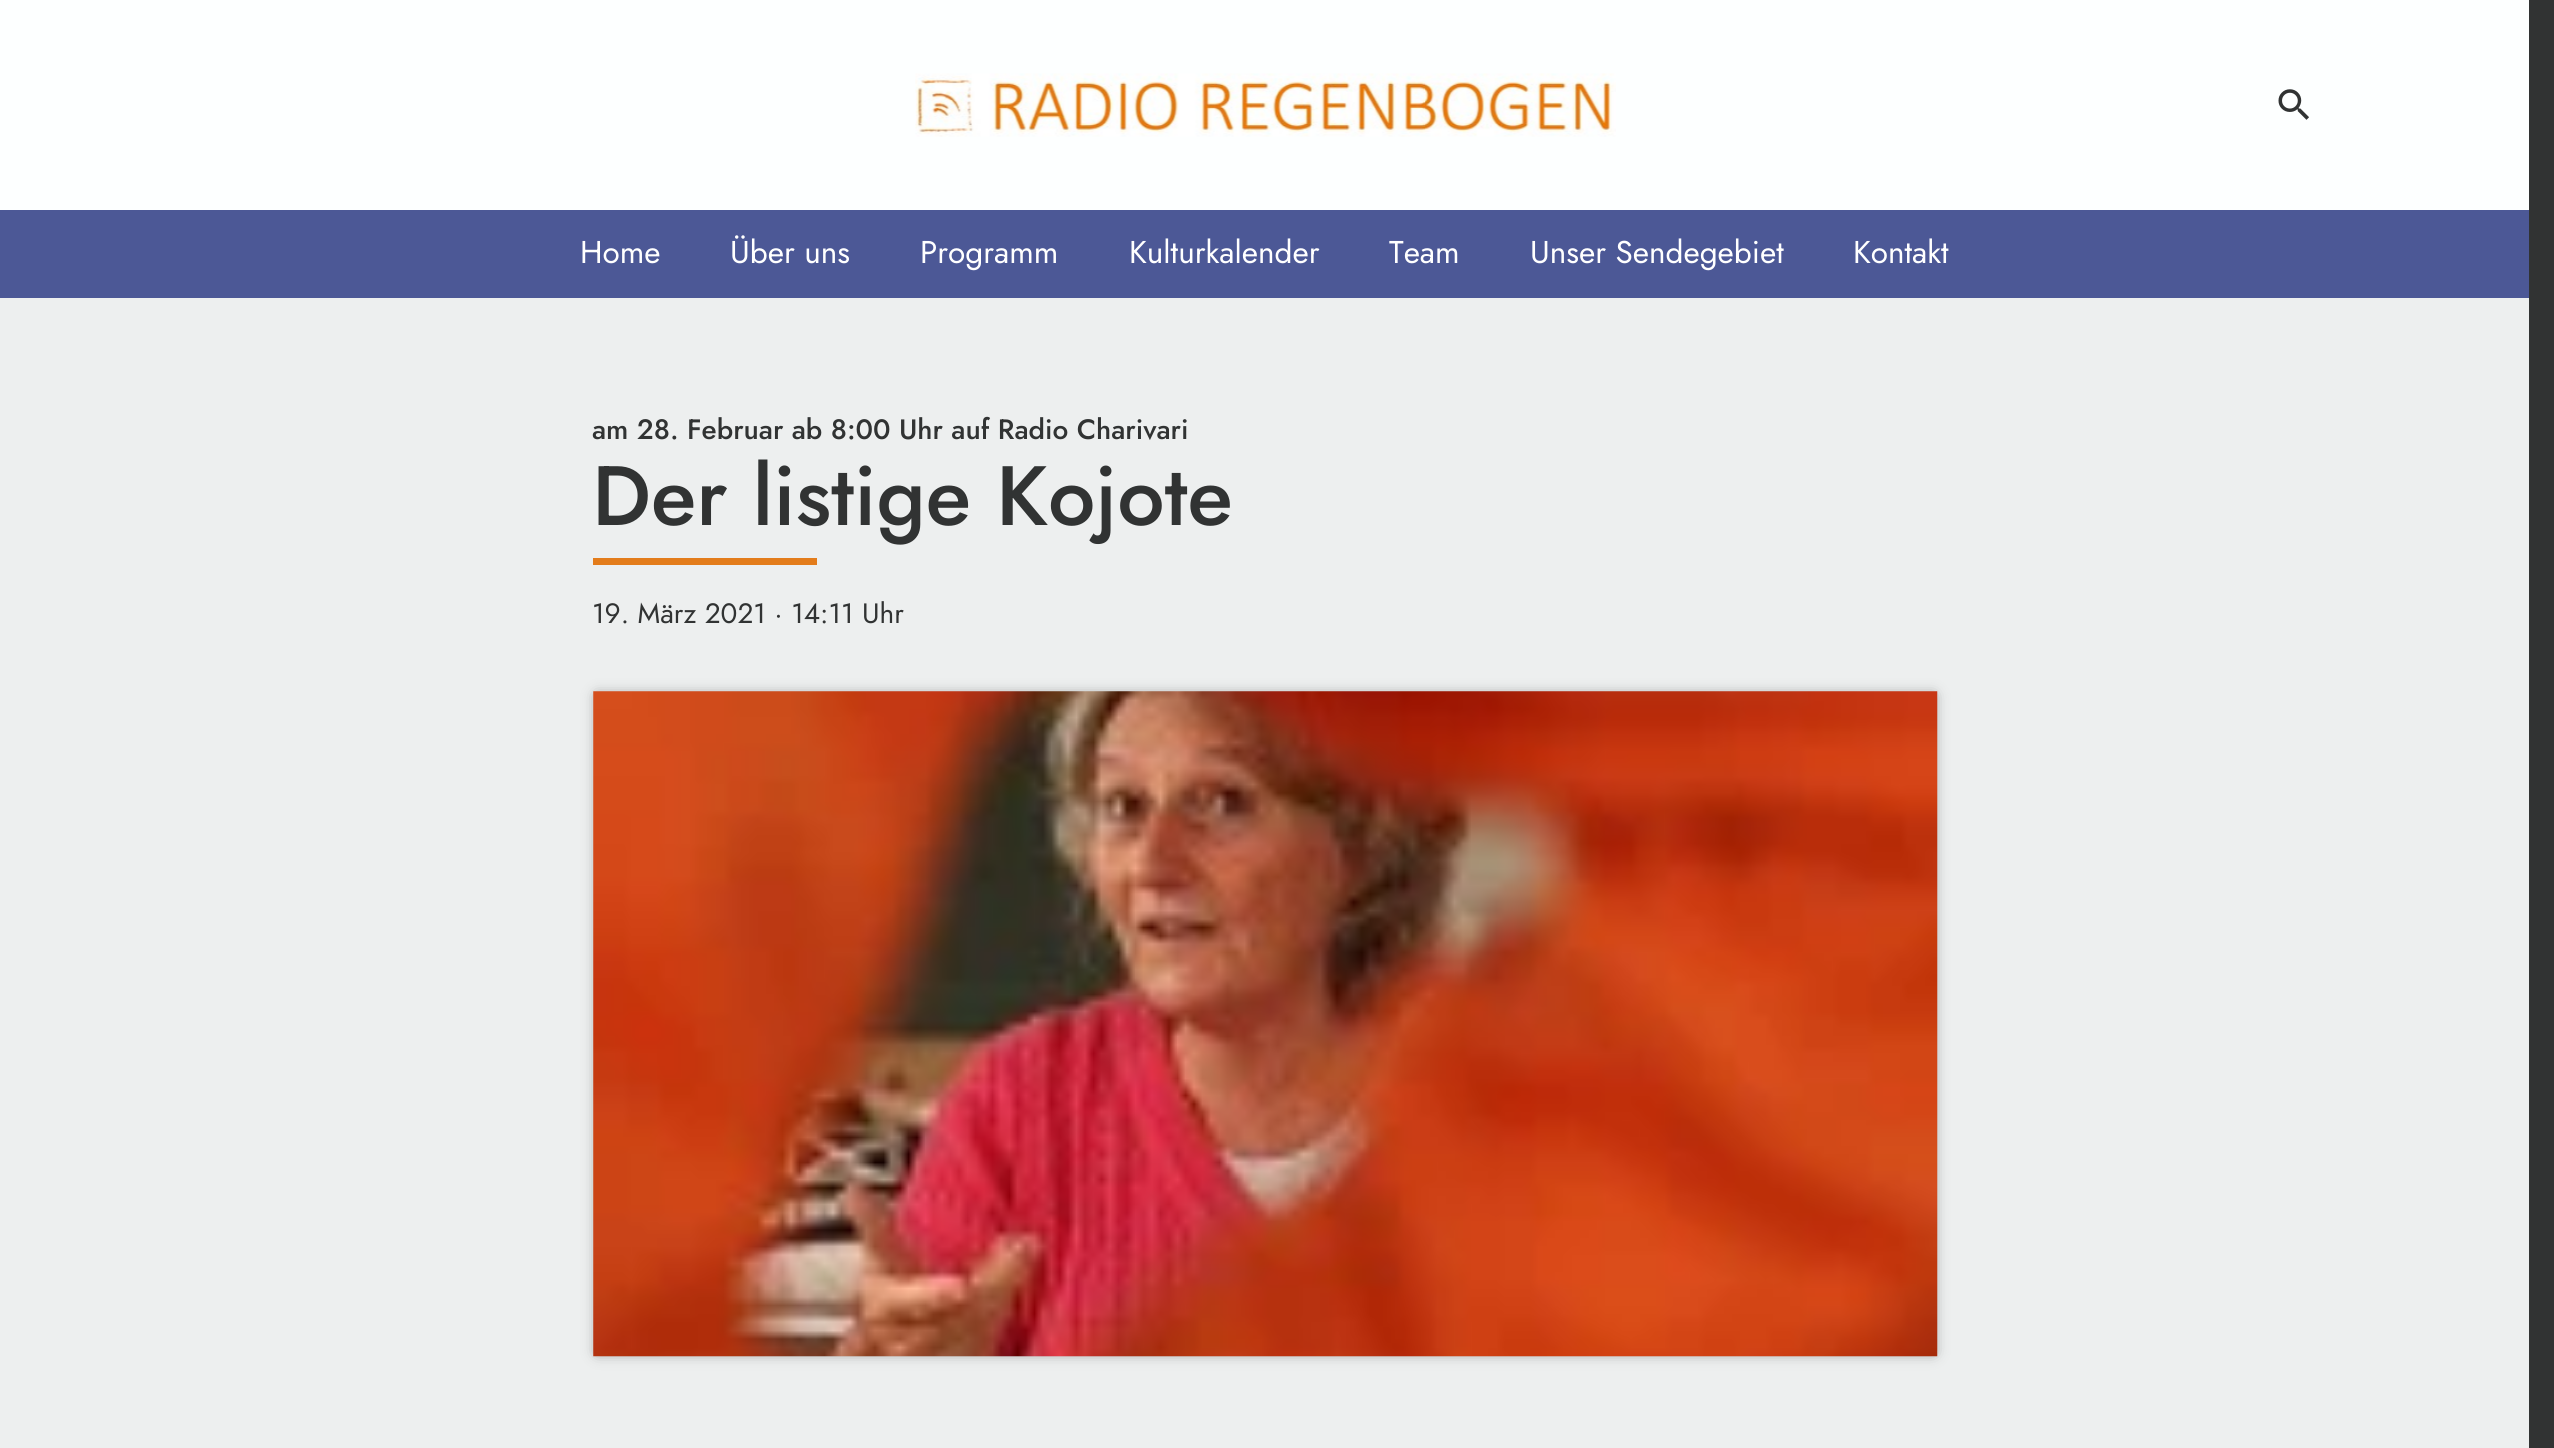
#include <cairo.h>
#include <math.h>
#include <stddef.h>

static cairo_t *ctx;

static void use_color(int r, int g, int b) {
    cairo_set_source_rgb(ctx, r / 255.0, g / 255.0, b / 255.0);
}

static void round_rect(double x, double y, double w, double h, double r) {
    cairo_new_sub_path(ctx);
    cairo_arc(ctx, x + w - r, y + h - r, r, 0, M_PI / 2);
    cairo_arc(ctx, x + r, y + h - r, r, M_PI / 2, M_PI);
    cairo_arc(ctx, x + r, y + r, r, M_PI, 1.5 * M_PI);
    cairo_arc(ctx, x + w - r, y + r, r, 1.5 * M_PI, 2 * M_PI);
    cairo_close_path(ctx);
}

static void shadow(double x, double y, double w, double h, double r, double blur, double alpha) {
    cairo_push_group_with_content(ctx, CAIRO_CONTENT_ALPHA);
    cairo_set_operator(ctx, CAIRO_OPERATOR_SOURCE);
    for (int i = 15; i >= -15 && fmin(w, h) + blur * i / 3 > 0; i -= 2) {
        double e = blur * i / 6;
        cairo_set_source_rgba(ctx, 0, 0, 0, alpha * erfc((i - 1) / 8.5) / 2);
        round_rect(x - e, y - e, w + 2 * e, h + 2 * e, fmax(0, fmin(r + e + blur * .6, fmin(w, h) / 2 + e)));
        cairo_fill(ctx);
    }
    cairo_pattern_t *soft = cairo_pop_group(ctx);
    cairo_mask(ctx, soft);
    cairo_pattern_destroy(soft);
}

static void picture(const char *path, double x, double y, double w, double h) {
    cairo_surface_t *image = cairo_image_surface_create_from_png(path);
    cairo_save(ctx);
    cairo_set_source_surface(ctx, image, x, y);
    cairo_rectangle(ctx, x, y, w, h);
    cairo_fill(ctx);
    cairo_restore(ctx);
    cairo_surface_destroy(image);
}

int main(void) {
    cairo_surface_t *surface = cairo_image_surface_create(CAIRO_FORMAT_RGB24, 2554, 1448);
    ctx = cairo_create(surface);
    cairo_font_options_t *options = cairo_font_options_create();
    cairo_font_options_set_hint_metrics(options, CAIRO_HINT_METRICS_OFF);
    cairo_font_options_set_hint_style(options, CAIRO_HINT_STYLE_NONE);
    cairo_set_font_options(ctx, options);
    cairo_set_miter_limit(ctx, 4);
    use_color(49, 51, 51);
    cairo_paint(ctx);
    use_color(253, 255, 255);
    cairo_rectangle(ctx, 0, 0, 2529, 210);
    cairo_fill(ctx);
    picture("img1.png", 915, 73, 701, 64);
    picture("img2.png", 2278, 89, 31, 31);
    use_color(76, 88, 150);
    cairo_rectangle(ctx, 0, 210, 2529, 88);
    cairo_fill(ctx);
    cairo_select_font_face(ctx, "Jost", CAIRO_FONT_SLANT_NORMAL, CAIRO_FONT_WEIGHT_NORMAL);
    cairo_set_font_size(ctx, 31.5);
    use_color(255, 255, 255);
    cairo_move_to(ctx, 580, 263);
    cairo_show_text(ctx, "Home");
    cairo_move_to(ctx, 730, 263);
    cairo_show_text(ctx, "Über uns");
    cairo_move_to(ctx, 920, 263);
    cairo_show_text(ctx, "Programm");
    cairo_move_to(ctx, 1129, 263);
    cairo_show_text(ctx, "Kulturkalender");
    cairo_move_to(ctx, 1389, 263);
    cairo_show_text(ctx, "Team");
    cairo_move_to(ctx, 1530, 263);
    cairo_show_text(ctx, "Unser Sendegebiet");
    cairo_move_to(ctx, 1853, 263);
    cairo_show_text(ctx, "Kontakt");
    use_color(237, 239, 239);
    cairo_rectangle(ctx, 0, 298, 2529, 1150);
    cairo_fill(ctx);
    cairo_select_font_face(ctx, "Jost Medium", CAIRO_FONT_SLANT_NORMAL, CAIRO_FONT_WEIGHT_NORMAL);
    cairo_set_font_size(ctx, 28);
    use_color(49, 51, 51);
    cairo_move_to(ctx, 592, 439);
    cairo_show_text(ctx, "am 28. Februar ab 8:00 Uhr auf Radio Charivari");
    cairo_set_font_size(ctx, 84);
    cairo_move_to(ctx, 592, 525);
    cairo_show_text(ctx, "Der listige Kojote");
    use_color(227, 124, 27);
    cairo_rectangle(ctx, 593, 558, 224, 7);
    cairo_fill(ctx);
    cairo_select_font_face(ctx, "Jost", CAIRO_FONT_SLANT_NORMAL, CAIRO_FONT_WEIGHT_NORMAL);
    cairo_set_font_size(ctx, 28);
    use_color(49, 51, 51);
    cairo_move_to(ctx, 592, 623);
    cairo_show_text(ctx, "19. März 2021 · 14:11 Uhr");
    use_color(0, 0, 0);
    shadow(597, 695, 1337, 658, 0, 7, 0.4);
    picture("img3.png", 593, 691, 1345, 666);
    cairo_surface_write_to_png(surface, "result.png");
    cairo_font_options_destroy(options);
    cairo_destroy(ctx);
    cairo_surface_destroy(surface);
    return 0;
}
